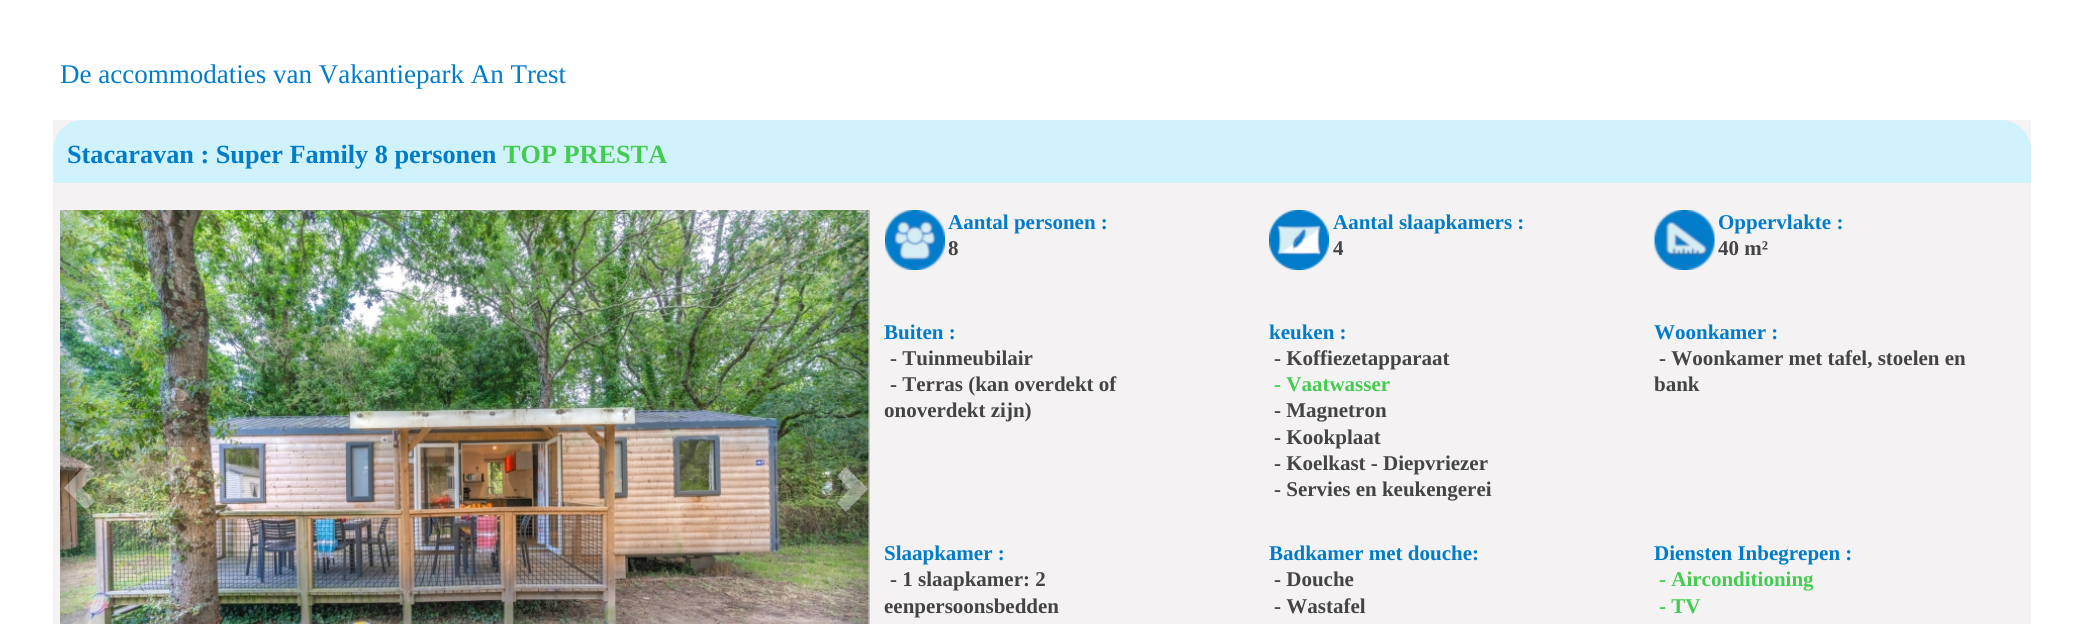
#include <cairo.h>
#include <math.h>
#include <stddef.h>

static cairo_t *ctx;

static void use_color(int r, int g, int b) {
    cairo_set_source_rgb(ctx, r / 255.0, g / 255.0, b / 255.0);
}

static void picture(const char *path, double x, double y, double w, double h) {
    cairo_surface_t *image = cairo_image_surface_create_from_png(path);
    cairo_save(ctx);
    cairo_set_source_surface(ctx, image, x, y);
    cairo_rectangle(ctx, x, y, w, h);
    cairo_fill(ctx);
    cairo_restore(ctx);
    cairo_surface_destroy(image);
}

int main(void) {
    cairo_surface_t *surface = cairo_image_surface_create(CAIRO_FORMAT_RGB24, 2083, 624);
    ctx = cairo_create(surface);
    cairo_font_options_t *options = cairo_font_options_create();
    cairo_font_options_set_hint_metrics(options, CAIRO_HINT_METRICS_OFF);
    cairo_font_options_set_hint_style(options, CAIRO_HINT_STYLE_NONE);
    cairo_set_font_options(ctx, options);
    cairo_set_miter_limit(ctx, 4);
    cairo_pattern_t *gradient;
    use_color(255, 255, 255);
    cairo_paint(ctx);
    cairo_select_font_face(ctx, "Liberation Serif", CAIRO_FONT_SLANT_NORMAL, CAIRO_FONT_WEIGHT_NORMAL);
    cairo_set_font_size(ctx, 27);
    use_color(0, 124, 202);
    cairo_move_to(ctx, 60, 83);
    cairo_show_text(ctx, "De accommodaties van Vakantiepark An Trest");
    use_color(244, 242, 242);
    cairo_rectangle(ctx, 53, 120, 1978, 504);
    cairo_fill(ctx);
    use_color(208, 242, 253);
    cairo_new_path(ctx);
    cairo_move_to(ctx, 83, 120);
    cairo_line_to(ctx, 2001, 120);
    cairo_curve_to(ctx, 2017.5, 120, 2031, 133.5, 2031, 150);
    cairo_line_to(ctx, 2031, 183);
    cairo_line_to(ctx, 53, 183);
    cairo_line_to(ctx, 53, 150);
    cairo_curve_to(ctx, 53, 133.5, 66.5, 120, 83, 120);
    cairo_close_path(ctx);
    cairo_fill(ctx);
    cairo_select_font_face(ctx, "Liberation Serif", CAIRO_FONT_SLANT_NORMAL, CAIRO_FONT_WEIGHT_BOLD);
    cairo_set_font_size(ctx, 26.25);
    use_color(0, 124, 202);
    cairo_move_to(ctx, 67, 163);
    cairo_show_text(ctx, "Stacaravan : Super Family 8 personen");
    use_color(68, 204, 80);
    cairo_move_to(ctx, 503, 163);
    cairo_show_text(ctx, "TOP PRESTA");
    picture("img1.png", 60, 210, 809, 414);
    cairo_set_source_rgba(ctx, 1, 1, 1, 0.4);
    cairo_new_path(ctx);
    cairo_move_to(ctx, 64, 488);
    cairo_line_to(ctx, 86, 510);
    cairo_line_to(ctx, 95, 501);
    cairo_line_to(ctx, 82, 488);
    cairo_line_to(ctx, 95, 474);
    cairo_line_to(ctx, 86, 465);
    cairo_close_path(ctx);
    cairo_fill(ctx);
    gradient = cairo_pattern_create_linear(830, 488, 870, 488);
    cairo_pattern_add_color_stop_rgba(gradient, 0, 0, 0, 0, 0);
    cairo_pattern_add_color_stop_rgba(gradient, 1, 0, 0, 0, 0.2);
    cairo_set_source(ctx, gradient);
    cairo_pattern_destroy(gradient);
    cairo_rectangle(ctx, 834, 210, 36, 414);
    cairo_fill(ctx);
    cairo_set_source_rgba(ctx, 1, 1, 1, 0.4);
    cairo_new_path(ctx);
    cairo_move_to(ctx, 837, 503);
    cairo_line_to(ctx, 850, 489);
    cairo_line_to(ctx, 837, 476);
    cairo_line_to(ctx, 846, 467);
    cairo_line_to(ctx, 868, 489);
    cairo_line_to(ctx, 846, 512);
    cairo_close_path(ctx);
    cairo_fill(ctx);
    picture("img2.png", 885, 210, 60, 60);
    cairo_set_font_size(ctx, 21);
    use_color(0, 124, 202);
    cairo_move_to(ctx, 948, 229);
    cairo_show_text(ctx, "Aantal personen :");
    use_color(68, 68, 68);
    cairo_move_to(ctx, 948, 255);
    cairo_show_text(ctx, "8");
    picture("img3.png", 1269, 210, 60, 60);
    use_color(0, 124, 202);
    cairo_move_to(ctx, 1333, 229);
    cairo_show_text(ctx, "Aantal slaapkamers :");
    use_color(68, 68, 68);
    cairo_move_to(ctx, 1333, 255);
    cairo_show_text(ctx, "4");
    picture("img4.png", 1654, 210, 61, 60);
    use_color(0, 124, 202);
    cairo_move_to(ctx, 1718, 229);
    cairo_show_text(ctx, "Oppervlakte :");
    use_color(68, 68, 68);
    cairo_move_to(ctx, 1718, 255);
    cairo_show_text(ctx, "40 m²");
    use_color(0, 124, 202);
    cairo_move_to(ctx, 884, 339);
    cairo_show_text(ctx, "Buiten :");
    use_color(68, 68, 68);
    cairo_move_to(ctx, 890, 365);
    cairo_show_text(ctx, "- Tuinmeubilair");
    cairo_move_to(ctx, 890, 391);
    cairo_show_text(ctx, "- Terras (kan overdekt of");
    cairo_move_to(ctx, 884, 417);
    cairo_show_text(ctx, "onoverdekt zijn)");
    use_color(0, 124, 202);
    cairo_move_to(ctx, 1269, 339);
    cairo_show_text(ctx, "keuken :");
    use_color(68, 68, 68);
    cairo_move_to(ctx, 1274, 365);
    cairo_show_text(ctx, "- Koffiezetapparaat");
    use_color(68, 204, 80);
    cairo_move_to(ctx, 1274, 391);
    cairo_show_text(ctx, "- Vaatwasser");
    use_color(68, 68, 68);
    cairo_move_to(ctx, 1274, 417);
    cairo_show_text(ctx, "- Magnetron");
    cairo_move_to(ctx, 1274, 444);
    cairo_show_text(ctx, "- Kookplaat");
    cairo_move_to(ctx, 1274, 470);
    cairo_show_text(ctx, "- Koelkast - Diepvriezer");
    cairo_move_to(ctx, 1274, 496);
    cairo_show_text(ctx, "- Servies en keukengerei");
    use_color(0, 124, 202);
    cairo_move_to(ctx, 1654, 339);
    cairo_show_text(ctx, "Woonkamer :");
    use_color(68, 68, 68);
    cairo_move_to(ctx, 1659, 365);
    cairo_show_text(ctx, "- Woonkamer met tafel, stoelen en");
    cairo_move_to(ctx, 1654, 391);
    cairo_show_text(ctx, "bank");
    use_color(0, 124, 202);
    cairo_move_to(ctx, 884, 560);
    cairo_show_text(ctx, "Slaapkamer :");
    use_color(68, 68, 68);
    cairo_move_to(ctx, 890, 586);
    cairo_show_text(ctx, "- 1 slaapkamer: 2");
    cairo_move_to(ctx, 884, 613);
    cairo_show_text(ctx, "eenpersoonsbedden");
    use_color(0, 124, 202);
    cairo_move_to(ctx, 1269, 560);
    cairo_show_text(ctx, "Badkamer met douche:");
    use_color(68, 68, 68);
    cairo_move_to(ctx, 1274, 586);
    cairo_show_text(ctx, "- Douche");
    cairo_move_to(ctx, 1274, 613);
    cairo_show_text(ctx, "- Wastafel");
    use_color(0, 124, 202);
    cairo_move_to(ctx, 1654, 560);
    cairo_show_text(ctx, "Diensten Inbegrepen :");
    use_color(68, 204, 80);
    cairo_move_to(ctx, 1659, 586);
    cairo_show_text(ctx, "- Airconditioning");
    cairo_move_to(ctx, 1659, 613);
    cairo_show_text(ctx, "- TV");
    cairo_surface_write_to_png(surface, "result.png");
    cairo_font_options_destroy(options);
    cairo_destroy(ctx);
    cairo_surface_destroy(surface);
    return 0;
}
